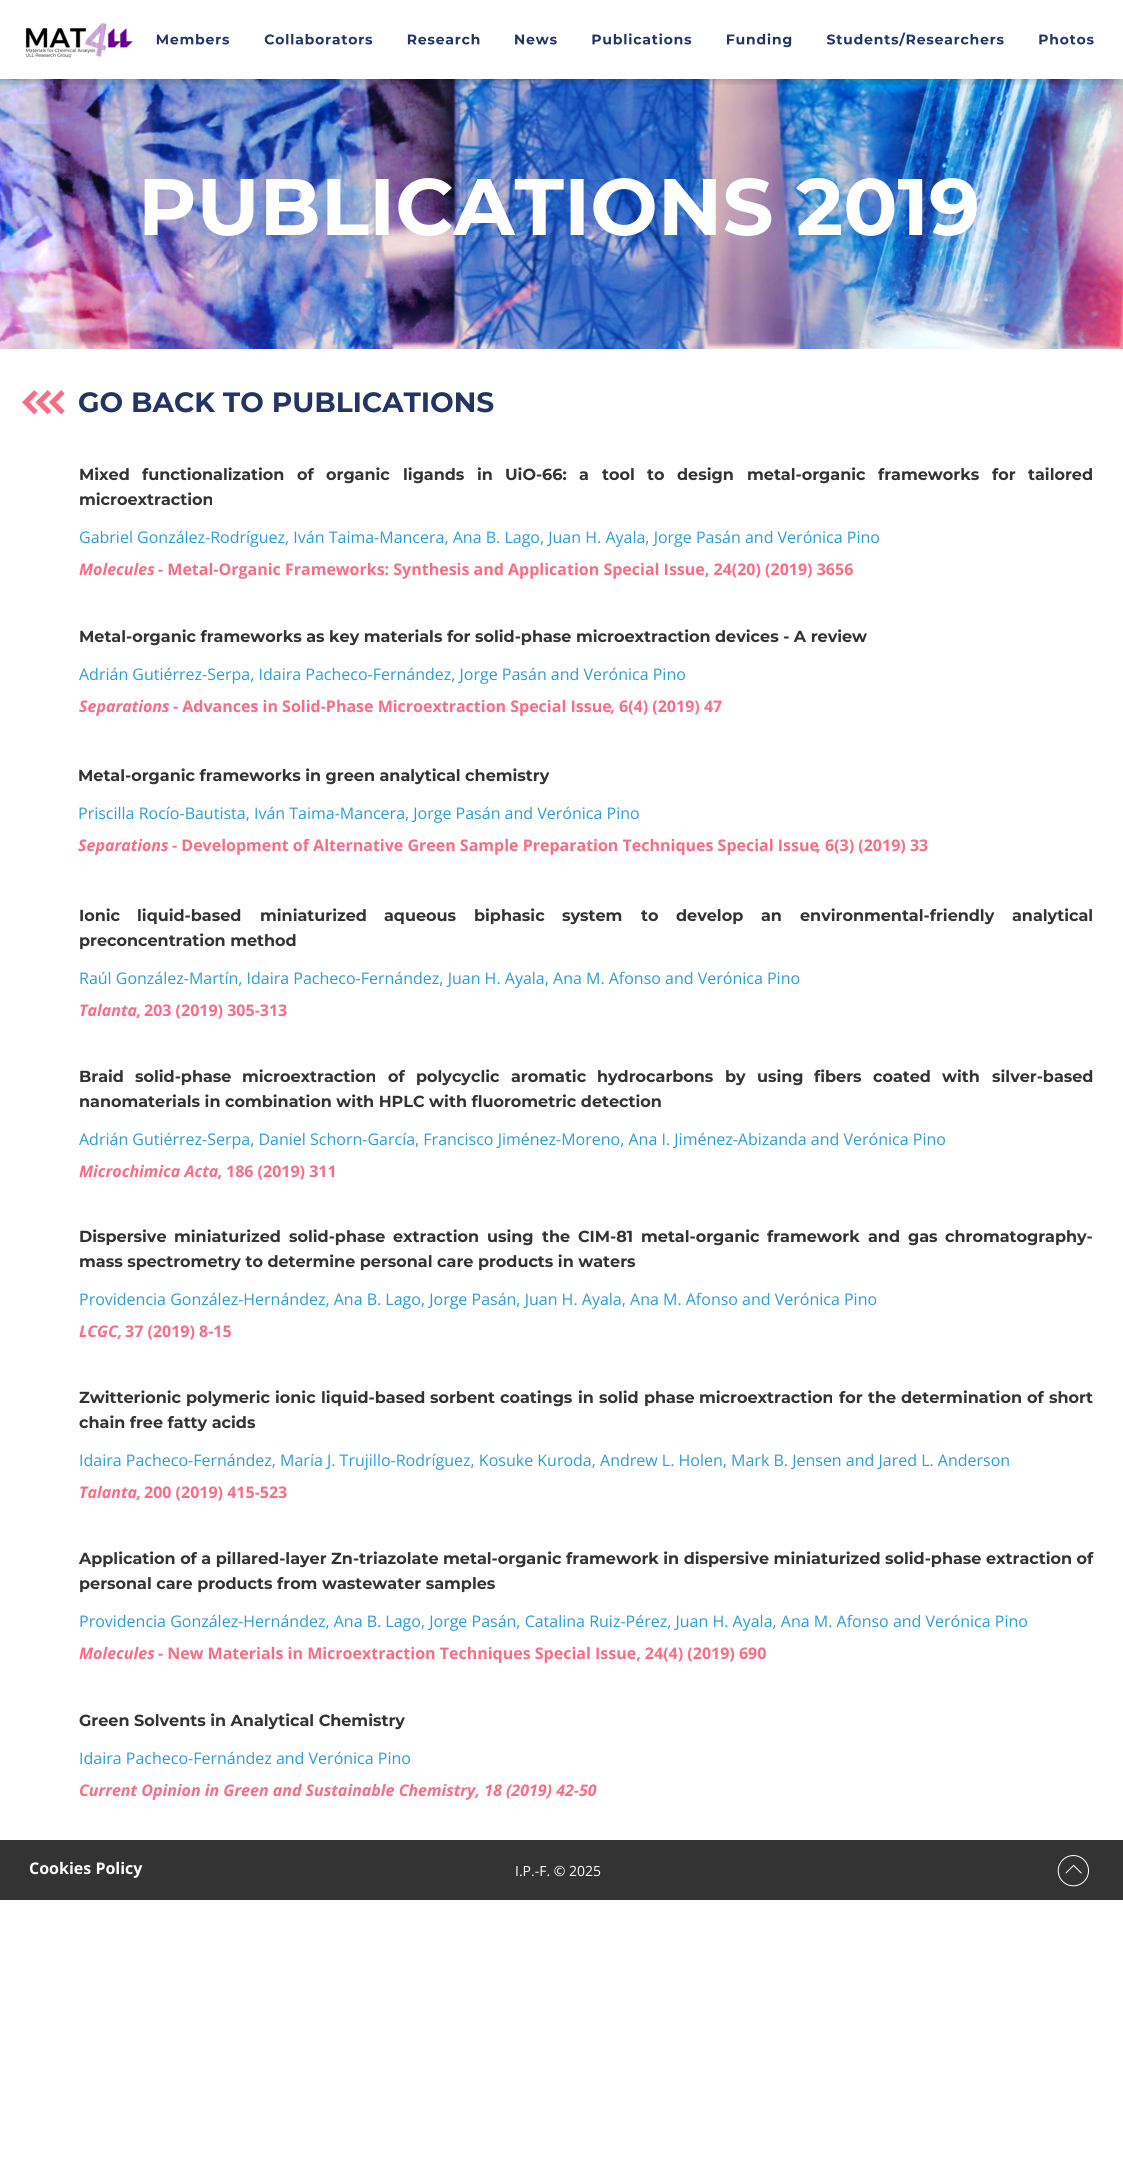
#include <cairo.h>
#include <math.h>
#include <stddef.h>

static cairo_t *ctx;

static void use_color(int r, int g, int b) {
    cairo_set_source_rgb(ctx, r / 255.0, g / 255.0, b / 255.0);
}

static void round_rect(double x, double y, double w, double h, double r) {
    cairo_new_sub_path(ctx);
    cairo_arc(ctx, x + w - r, y + h - r, r, 0, M_PI / 2);
    cairo_arc(ctx, x + r, y + h - r, r, M_PI / 2, M_PI);
    cairo_arc(ctx, x + r, y + r, r, M_PI, 1.5 * M_PI);
    cairo_arc(ctx, x + w - r, y + r, r, 1.5 * M_PI, 2 * M_PI);
    cairo_close_path(ctx);
}

static void shadow(double x, double y, double w, double h, double r, double blur, double alpha) {
    cairo_push_group_with_content(ctx, CAIRO_CONTENT_ALPHA);
    cairo_set_operator(ctx, CAIRO_OPERATOR_SOURCE);
    for (int i = 15; i >= -15 && fmin(w, h) + blur * i / 3 > 0; i -= 2) {
        double e = blur * i / 6;
        cairo_set_source_rgba(ctx, 0, 0, 0, alpha * erfc((i - 1) / 8.5) / 2);
        round_rect(x - e, y - e, w + 2 * e, h + 2 * e, fmax(0, fmin(r + e + blur * .6, fmin(w, h) / 2 + e)));
        cairo_fill(ctx);
    }
    cairo_pattern_t *soft = cairo_pop_group(ctx);
    cairo_mask(ctx, soft);
    cairo_pattern_destroy(soft);
}

static void picture(const char *path, double x, double y, double w, double h) {
    cairo_surface_t *image = cairo_image_surface_create_from_png(path);
    cairo_save(ctx);
    cairo_set_source_surface(ctx, image, x, y);
    cairo_rectangle(ctx, x, y, w, h);
    cairo_fill(ctx);
    cairo_restore(ctx);
    cairo_surface_destroy(image);
}

int main(void) {
    cairo_surface_t *surface = cairo_image_surface_create(CAIRO_FORMAT_RGB24, 1123, 2157);
    ctx = cairo_create(surface);
    cairo_font_options_t *options = cairo_font_options_create();
    cairo_font_options_set_hint_metrics(options, CAIRO_HINT_METRICS_OFF);
    cairo_font_options_set_hint_style(options, CAIRO_HINT_STYLE_NONE);
    cairo_set_font_options(ctx, options);
    cairo_set_miter_limit(ctx, 4);
    use_color(255, 255, 255);
    cairo_paint(ctx);
    picture("img10.png", 0, 79, 1123, 270);
    cairo_save(ctx);
    cairo_rectangle(ctx, 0, 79, 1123, 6);
    cairo_clip(ctx);
    use_color(0, 0, 0);
    shadow(0, 3, 1123, 79, 0, 4, 0.1);
    shadow(0, 3, 1123, 79, 0, 4, 0.1);
    cairo_restore(ctx);
    picture("img1.png", 25, 23, 108, 35);
    picture("img2.png", 156, 34, 74, 11);
    picture("img3.png", 264, 34, 109, 11);
    picture("img4.png", 407, 34, 73, 11);
    picture("img5.png", 515, 34, 42, 11);
    picture("img6.png", 592, 33, 100, 12);
    picture("img7.png", 727, 33, 65, 15);
    picture("img8.png", 827, 32, 177, 14);
    picture("img9.png", 1039, 34, 55, 11);
    cairo_select_font_face(ctx, "Montserrat Thin", CAIRO_FONT_SLANT_NORMAL, CAIRO_FONT_WEIGHT_NORMAL);
    cairo_set_font_size(ctx, 80);
    use_color(255, 255, 255);
    cairo_move_to(ctx, 138, 235);
    cairo_show_text(ctx, "PUBLICATIONS 2019");
    picture("img11.png", 22, 390, 472, 25);
    cairo_set_font_size(ctx, 16);
    use_color(51, 51, 51);
    cairo_move_to(ctx, 79, 480);
    cairo_show_text(ctx, "Mixed");
    cairo_move_to(ctx, 142, 480);
    cairo_show_text(ctx, "functionalization");
    cairo_move_to(ctx, 297, 480);
    cairo_show_text(ctx, "of");
    cairo_move_to(ctx, 326, 480);
    cairo_show_text(ctx, "organic");
    cairo_move_to(ctx, 403, 480);
    cairo_show_text(ctx, "ligands");
    cairo_move_to(ctx, 477, 480);
    cairo_show_text(ctx, "in");
    cairo_move_to(ctx, 505, 480);
    cairo_show_text(ctx, "UiO-66:");
    cairo_move_to(ctx, 579, 480);
    cairo_show_text(ctx, "a");
    cairo_move_to(ctx, 602, 480);
    cairo_show_text(ctx, "tool");
    cairo_move_to(ctx, 647, 480);
    cairo_show_text(ctx, "to");
    cairo_move_to(ctx, 677, 480);
    cairo_show_text(ctx, "design");
    cairo_move_to(ctx, 747, 480);
    cairo_show_text(ctx, "metal-organic");
    cairo_move_to(ctx, 878, 480);
    cairo_show_text(ctx, "frameworks");
    cairo_move_to(ctx, 992, 480);
    cairo_show_text(ctx, "for");
    cairo_move_to(ctx, 1028, 480);
    cairo_show_text(ctx, "tailored");
    cairo_move_to(ctx, 79, 505);
    cairo_show_text(ctx, "microextraction");
    cairo_select_font_face(ctx, "Open Sans", CAIRO_FONT_SLANT_NORMAL, CAIRO_FONT_WEIGHT_NORMAL);
    use_color(42, 157, 217);
    cairo_move_to(ctx, 79, 543);
    cairo_show_text(ctx, "Gabriel González-Rodríguez, Iván Taima-Mancera, Ana B. Lago, Juan H. Ayala, Jorge Pasán and Verónica Pino");
    cairo_select_font_face(ctx, "Open Sans", CAIRO_FONT_SLANT_ITALIC, CAIRO_FONT_WEIGHT_BOLD);
    use_color(251, 108, 132);
    cairo_move_to(ctx, 79, 575);
    cairo_show_text(ctx, "Molecules");
    cairo_select_font_face(ctx, "Open Sans", CAIRO_FONT_SLANT_NORMAL, CAIRO_FONT_WEIGHT_BOLD);
    cairo_move_to(ctx, 158, 575);
    cairo_show_text(ctx, "- Metal-Organic Frameworks: Synthesis and Application Special Issue, 24(20) (2019) 3656");
    cairo_select_font_face(ctx, "Montserrat Thin", CAIRO_FONT_SLANT_NORMAL, CAIRO_FONT_WEIGHT_NORMAL);
    use_color(51, 51, 51);
    cairo_move_to(ctx, 79, 642);
    cairo_show_text(ctx, "Metal-organic frameworks as key materials for solid-phase microextraction devices - A review");
    cairo_select_font_face(ctx, "Open Sans", CAIRO_FONT_SLANT_NORMAL, CAIRO_FONT_WEIGHT_NORMAL);
    use_color(42, 157, 217);
    cairo_move_to(ctx, 79, 680);
    cairo_show_text(ctx, "Adrián Gutiérrez-Serpa, Idaira Pacheco-Fernández, Jorge Pasán and Verónica Pino");
    cairo_select_font_face(ctx, "Open Sans", CAIRO_FONT_SLANT_ITALIC, CAIRO_FONT_WEIGHT_BOLD);
    use_color(251, 108, 132);
    cairo_move_to(ctx, 79, 712);
    cairo_show_text(ctx, "Separations");
    cairo_select_font_face(ctx, "Open Sans", CAIRO_FONT_SLANT_NORMAL, CAIRO_FONT_WEIGHT_BOLD);
    cairo_move_to(ctx, 173, 712);
    cairo_show_text(ctx, "- Advances in Solid-Phase Microextraction Special Issue");
    cairo_select_font_face(ctx, "Open Sans", CAIRO_FONT_SLANT_ITALIC, CAIRO_FONT_WEIGHT_BOLD);
    cairo_move_to(ctx, 611, 712);
    cairo_show_text(ctx, ",");
    cairo_select_font_face(ctx, "Open Sans", CAIRO_FONT_SLANT_NORMAL, CAIRO_FONT_WEIGHT_BOLD);
    cairo_move_to(ctx, 619, 712);
    cairo_show_text(ctx, "6(4) (2019) 47");
    cairo_select_font_face(ctx, "Montserrat Thin", CAIRO_FONT_SLANT_NORMAL, CAIRO_FONT_WEIGHT_NORMAL);
    use_color(51, 51, 51);
    cairo_move_to(ctx, 78, 781);
    cairo_show_text(ctx, "Metal-organic frameworks in green analytical chemistry");
    cairo_select_font_face(ctx, "Open Sans", CAIRO_FONT_SLANT_NORMAL, CAIRO_FONT_WEIGHT_NORMAL);
    use_color(42, 157, 217);
    cairo_move_to(ctx, 78, 819);
    cairo_show_text(ctx, "Priscilla Rocío-Bautista, Iván Taima-Mancera, Jorge Pasán and Verónica Pino");
    cairo_select_font_face(ctx, "Open Sans", CAIRO_FONT_SLANT_ITALIC, CAIRO_FONT_WEIGHT_BOLD);
    use_color(251, 108, 132);
    cairo_move_to(ctx, 78, 851);
    cairo_show_text(ctx, "Separations");
    cairo_select_font_face(ctx, "Open Sans", CAIRO_FONT_SLANT_NORMAL, CAIRO_FONT_WEIGHT_BOLD);
    cairo_move_to(ctx, 172, 851);
    cairo_show_text(ctx, "- Development of Alternative Green Sample Preparation Techniques Special Issue");
    cairo_move_to(ctx, 825, 851);
    cairo_show_text(ctx, "6(3) (2019) 33");
    cairo_select_font_face(ctx, "Open Sans", CAIRO_FONT_SLANT_ITALIC, CAIRO_FONT_WEIGHT_BOLD);
    cairo_move_to(ctx, 817, 851);
    cairo_show_text(ctx, ",");
    cairo_select_font_face(ctx, "Montserrat Thin", CAIRO_FONT_SLANT_NORMAL, CAIRO_FONT_WEIGHT_NORMAL);
    use_color(51, 51, 51);
    cairo_move_to(ctx, 79, 921);
    cairo_show_text(ctx, "Ionic");
    cairo_move_to(ctx, 137, 921);
    cairo_show_text(ctx, "liquid-based");
    cairo_move_to(ctx, 260, 921);
    cairo_show_text(ctx, "miniaturized");
    cairo_move_to(ctx, 384, 921);
    cairo_show_text(ctx, "aqueous");
    cairo_move_to(ctx, 474, 921);
    cairo_show_text(ctx, "biphasic");
    cairo_move_to(ctx, 562, 921);
    cairo_show_text(ctx, "system");
    cairo_move_to(ctx, 641, 921);
    cairo_show_text(ctx, "to");
    cairo_move_to(ctx, 676, 921);
    cairo_show_text(ctx, "develop");
    cairo_move_to(ctx, 761, 921);
    cairo_show_text(ctx, "an");
    cairo_move_to(ctx, 800, 921);
    cairo_show_text(ctx, "environmental-friendly");
    cairo_move_to(ctx, 1012, 921);
    cairo_show_text(ctx, "analytical");
    cairo_move_to(ctx, 79, 946);
    cairo_show_text(ctx, "preconcentration method");
    cairo_select_font_face(ctx, "Open Sans", CAIRO_FONT_SLANT_NORMAL, CAIRO_FONT_WEIGHT_NORMAL);
    use_color(42, 157, 217);
    cairo_move_to(ctx, 79, 984);
    cairo_show_text(ctx, "Raúl González-Martín, Idaira Pacheco-Fernández, Juan H. Ayala, Ana M. Afonso and Verónica Pino");
    cairo_select_font_face(ctx, "Open Sans", CAIRO_FONT_SLANT_ITALIC, CAIRO_FONT_WEIGHT_BOLD);
    use_color(251, 108, 132);
    cairo_move_to(ctx, 79, 1016);
    cairo_show_text(ctx, "Talanta,");
    cairo_select_font_face(ctx, "Open Sans", CAIRO_FONT_SLANT_NORMAL, CAIRO_FONT_WEIGHT_BOLD);
    cairo_move_to(ctx, 144, 1016);
    cairo_show_text(ctx, "203 (2019) 305-313");
    cairo_select_font_face(ctx, "Montserrat Thin", CAIRO_FONT_SLANT_NORMAL, CAIRO_FONT_WEIGHT_NORMAL);
    use_color(51, 51, 51);
    cairo_move_to(ctx, 79, 1082);
    cairo_show_text(ctx, "Braid");
    cairo_move_to(ctx, 135, 1082);
    cairo_show_text(ctx, "solid-phase");
    cairo_move_to(ctx, 242, 1082);
    cairo_show_text(ctx, "microextraction");
    cairo_move_to(ctx, 388, 1082);
    cairo_show_text(ctx, "of");
    cairo_move_to(ctx, 416, 1082);
    cairo_show_text(ctx, "polycyclic");
    cairo_move_to(ctx, 511, 1082);
    cairo_show_text(ctx, "aromatic");
    cairo_move_to(ctx, 597, 1082);
    cairo_show_text(ctx, "hydrocarbons");
    cairo_move_to(ctx, 725, 1082);
    cairo_show_text(ctx, "by");
    cairo_move_to(ctx, 757, 1082);
    cairo_show_text(ctx, "using");
    cairo_move_to(ctx, 814, 1082);
    cairo_show_text(ctx, "fibers");
    cairo_move_to(ctx, 873, 1082);
    cairo_show_text(ctx, "coated");
    cairo_move_to(ctx, 942, 1082);
    cairo_show_text(ctx, "with");
    cairo_move_to(ctx, 992, 1082);
    cairo_show_text(ctx, "silver-based");
    cairo_move_to(ctx, 79, 1107);
    cairo_show_text(ctx, "nanomaterials in combination with HPLC with fluorometric detection");
    cairo_select_font_face(ctx, "Open Sans", CAIRO_FONT_SLANT_NORMAL, CAIRO_FONT_WEIGHT_NORMAL);
    use_color(42, 157, 217);
    cairo_move_to(ctx, 79, 1145);
    cairo_show_text(ctx, "Adrián Gutiérrez-Serpa, Daniel Schorn-García, Francisco Jiménez-Moreno, Ana I. Jiménez-Abizanda and Verónica Pino");
    cairo_select_font_face(ctx, "Open Sans", CAIRO_FONT_SLANT_ITALIC, CAIRO_FONT_WEIGHT_BOLD);
    use_color(251, 108, 132);
    cairo_move_to(ctx, 79, 1177);
    cairo_show_text(ctx, "Microchimica Acta,");
    cairo_select_font_face(ctx, "Open Sans", CAIRO_FONT_SLANT_NORMAL, CAIRO_FONT_WEIGHT_BOLD);
    cairo_move_to(ctx, 226, 1177);
    cairo_show_text(ctx, "186 (2019) 311");
    cairo_select_font_face(ctx, "Montserrat Thin", CAIRO_FONT_SLANT_NORMAL, CAIRO_FONT_WEIGHT_NORMAL);
    use_color(51, 51, 51);
    cairo_move_to(ctx, 79, 1242);
    cairo_show_text(ctx, "Dispersive");
    cairo_move_to(ctx, 174, 1242);
    cairo_show_text(ctx, "miniaturized");
    cairo_move_to(ctx, 289, 1242);
    cairo_show_text(ctx, "solid-phase");
    cairo_move_to(ctx, 393, 1242);
    cairo_show_text(ctx, "extraction");
    cairo_move_to(ctx, 487, 1242);
    cairo_show_text(ctx, "using");
    cairo_move_to(ctx, 542, 1242);
    cairo_show_text(ctx, "the");
    cairo_move_to(ctx, 578, 1242);
    cairo_show_text(ctx, "CIM-81");
    cairo_move_to(ctx, 641, 1242);
    cairo_show_text(ctx, "metal-organic");
    cairo_move_to(ctx, 767, 1242);
    cairo_show_text(ctx, "framework");
    cairo_move_to(ctx, 868, 1242);
    cairo_show_text(ctx, "and");
    cairo_move_to(ctx, 908, 1242);
    cairo_show_text(ctx, "gas");
    cairo_move_to(ctx, 945, 1242);
    cairo_show_text(ctx, "chromatography-");
    cairo_move_to(ctx, 79, 1267);
    cairo_show_text(ctx, "mass spectrometry to determine personal care products in waters");
    cairo_select_font_face(ctx, "Open Sans", CAIRO_FONT_SLANT_NORMAL, CAIRO_FONT_WEIGHT_NORMAL);
    use_color(42, 157, 217);
    cairo_move_to(ctx, 79, 1305);
    cairo_show_text(ctx, "Providencia González-Hernández, Ana B. Lago, Jorge Pasán, Juan H. Ayala, Ana M. Afonso and Verónica Pino");
    cairo_select_font_face(ctx, "Open Sans", CAIRO_FONT_SLANT_ITALIC, CAIRO_FONT_WEIGHT_BOLD);
    use_color(251, 108, 132);
    cairo_move_to(ctx, 79, 1337);
    cairo_show_text(ctx, "LCGC,");
    cairo_select_font_face(ctx, "Open Sans", CAIRO_FONT_SLANT_NORMAL, CAIRO_FONT_WEIGHT_BOLD);
    cairo_move_to(ctx, 125, 1337);
    cairo_show_text(ctx, "37 (2019) 8-15");
    cairo_select_font_face(ctx, "Montserrat Thin", CAIRO_FONT_SLANT_NORMAL, CAIRO_FONT_WEIGHT_NORMAL);
    use_color(51, 51, 51);
    cairo_move_to(ctx, 79, 1403);
    cairo_show_text(ctx, "Zwitterionic");
    cairo_move_to(ctx, 186, 1403);
    cairo_show_text(ctx, "polymeric");
    cairo_move_to(ctx, 275, 1403);
    cairo_show_text(ctx, "ionic");
    cairo_move_to(ctx, 321, 1403);
    cairo_show_text(ctx, "liquid-based");
    cairo_move_to(ctx, 430, 1403);
    cairo_show_text(ctx, "sorbent");
    cairo_move_to(ctx, 500, 1403);
    cairo_show_text(ctx, "coatings");
    cairo_move_to(ctx, 578, 1403);
    cairo_show_text(ctx, "in");
    cairo_move_to(ctx, 599, 1403);
    cairo_show_text(ctx, "solid");
    cairo_move_to(ctx, 644, 1403);
    cairo_show_text(ctx, "phase");
    cairo_move_to(ctx, 699, 1403);
    cairo_show_text(ctx, "microextraction");
    cairo_move_to(ctx, 839, 1403);
    cairo_show_text(ctx, "for");
    cairo_move_to(ctx, 868, 1403);
    cairo_show_text(ctx, "the");
    cairo_move_to(ctx, 901, 1403);
    cairo_show_text(ctx, "determination");
    cairo_move_to(ctx, 1027, 1403);
    cairo_show_text(ctx, "of");
    cairo_move_to(ctx, 1049, 1403);
    cairo_show_text(ctx, "short");
    cairo_move_to(ctx, 79, 1428);
    cairo_show_text(ctx, "chain free fatty acids");
    cairo_select_font_face(ctx, "Open Sans", CAIRO_FONT_SLANT_NORMAL, CAIRO_FONT_WEIGHT_NORMAL);
    use_color(42, 157, 217);
    cairo_move_to(ctx, 79, 1466);
    cairo_show_text(ctx, "Idaira Pacheco-Fernández, María J. Trujillo-Rodríguez, Kosuke Kuroda, Andrew L. Holen, Mark B. Jensen and Jared L. Anderson");
    cairo_select_font_face(ctx, "Open Sans", CAIRO_FONT_SLANT_ITALIC, CAIRO_FONT_WEIGHT_BOLD);
    use_color(251, 108, 132);
    cairo_move_to(ctx, 79, 1498);
    cairo_show_text(ctx, "Talanta,");
    cairo_select_font_face(ctx, "Open Sans", CAIRO_FONT_SLANT_NORMAL, CAIRO_FONT_WEIGHT_BOLD);
    cairo_move_to(ctx, 144, 1498);
    cairo_show_text(ctx, "200 (2019) 415-523");
    cairo_select_font_face(ctx, "Montserrat Thin", CAIRO_FONT_SLANT_NORMAL, CAIRO_FONT_WEIGHT_NORMAL);
    use_color(51, 51, 51);
    cairo_move_to(ctx, 79, 1564);
    cairo_show_text(ctx, "Application of a pillared-layer Zn-triazolate metal-organic framework in dispersive miniaturized solid-phase extraction of");
    cairo_move_to(ctx, 79, 1589);
    cairo_show_text(ctx, "personal care products from wastewater samples");
    cairo_select_font_face(ctx, "Open Sans", CAIRO_FONT_SLANT_NORMAL, CAIRO_FONT_WEIGHT_NORMAL);
    use_color(42, 157, 217);
    cairo_move_to(ctx, 79, 1627);
    cairo_show_text(ctx, "Providencia González-Hernández, Ana B. Lago, Jorge Pasán, Catalina Ruiz-Pérez, Juan H. Ayala, Ana M. Afonso and Verónica Pino");
    cairo_select_font_face(ctx, "Open Sans", CAIRO_FONT_SLANT_ITALIC, CAIRO_FONT_WEIGHT_BOLD);
    use_color(251, 108, 132);
    cairo_move_to(ctx, 79, 1659);
    cairo_show_text(ctx, "Molecules");
    cairo_select_font_face(ctx, "Open Sans", CAIRO_FONT_SLANT_NORMAL, CAIRO_FONT_WEIGHT_BOLD);
    cairo_move_to(ctx, 158, 1659);
    cairo_show_text(ctx, "- New Materials in Microextraction Techniques Special Issue, 24(4) (2019) 690");
    cairo_select_font_face(ctx, "Montserrat Thin", CAIRO_FONT_SLANT_NORMAL, CAIRO_FONT_WEIGHT_NORMAL);
    use_color(51, 51, 51);
    cairo_move_to(ctx, 79, 1726);
    cairo_show_text(ctx, "Green Solvents in Analytical Chemistry");
    cairo_select_font_face(ctx, "Open Sans", CAIRO_FONT_SLANT_NORMAL, CAIRO_FONT_WEIGHT_NORMAL);
    use_color(42, 157, 217);
    cairo_move_to(ctx, 79, 1764);
    cairo_show_text(ctx, "Idaira Pacheco-Fernández and Verónica Pino");
    cairo_select_font_face(ctx, "Open Sans", CAIRO_FONT_SLANT_ITALIC, CAIRO_FONT_WEIGHT_BOLD);
    use_color(251, 108, 132);
    cairo_move_to(ctx, 79, 1796);
    cairo_show_text(ctx, "Current Opinion in Green and Sustainable Chemistry, 18 (2019) 42-50");
    use_color(51, 51, 51);
    cairo_rectangle(ctx, 0, 1840, 1123, 60);
    cairo_fill(ctx);
    cairo_select_font_face(ctx, "Open Sans", CAIRO_FONT_SLANT_NORMAL, CAIRO_FONT_WEIGHT_BOLD);
    use_color(255, 255, 255);
    cairo_move_to(ctx, 29, 1874);
    cairo_show_text(ctx, "Cookies Policy");
    cairo_select_font_face(ctx, "Open Sans", CAIRO_FONT_SLANT_NORMAL, CAIRO_FONT_WEIGHT_NORMAL);
    cairo_set_font_size(ctx, 14);
    cairo_move_to(ctx, 515, 1876);
    cairo_show_text(ctx, "I.P.-F. © 2025");
    picture("img12.png", 1057, 1855, 32, 32);
    cairo_surface_write_to_png(surface, "result.png");
    cairo_font_options_destroy(options);
    cairo_destroy(ctx);
    cairo_surface_destroy(surface);
    return 0;
}
